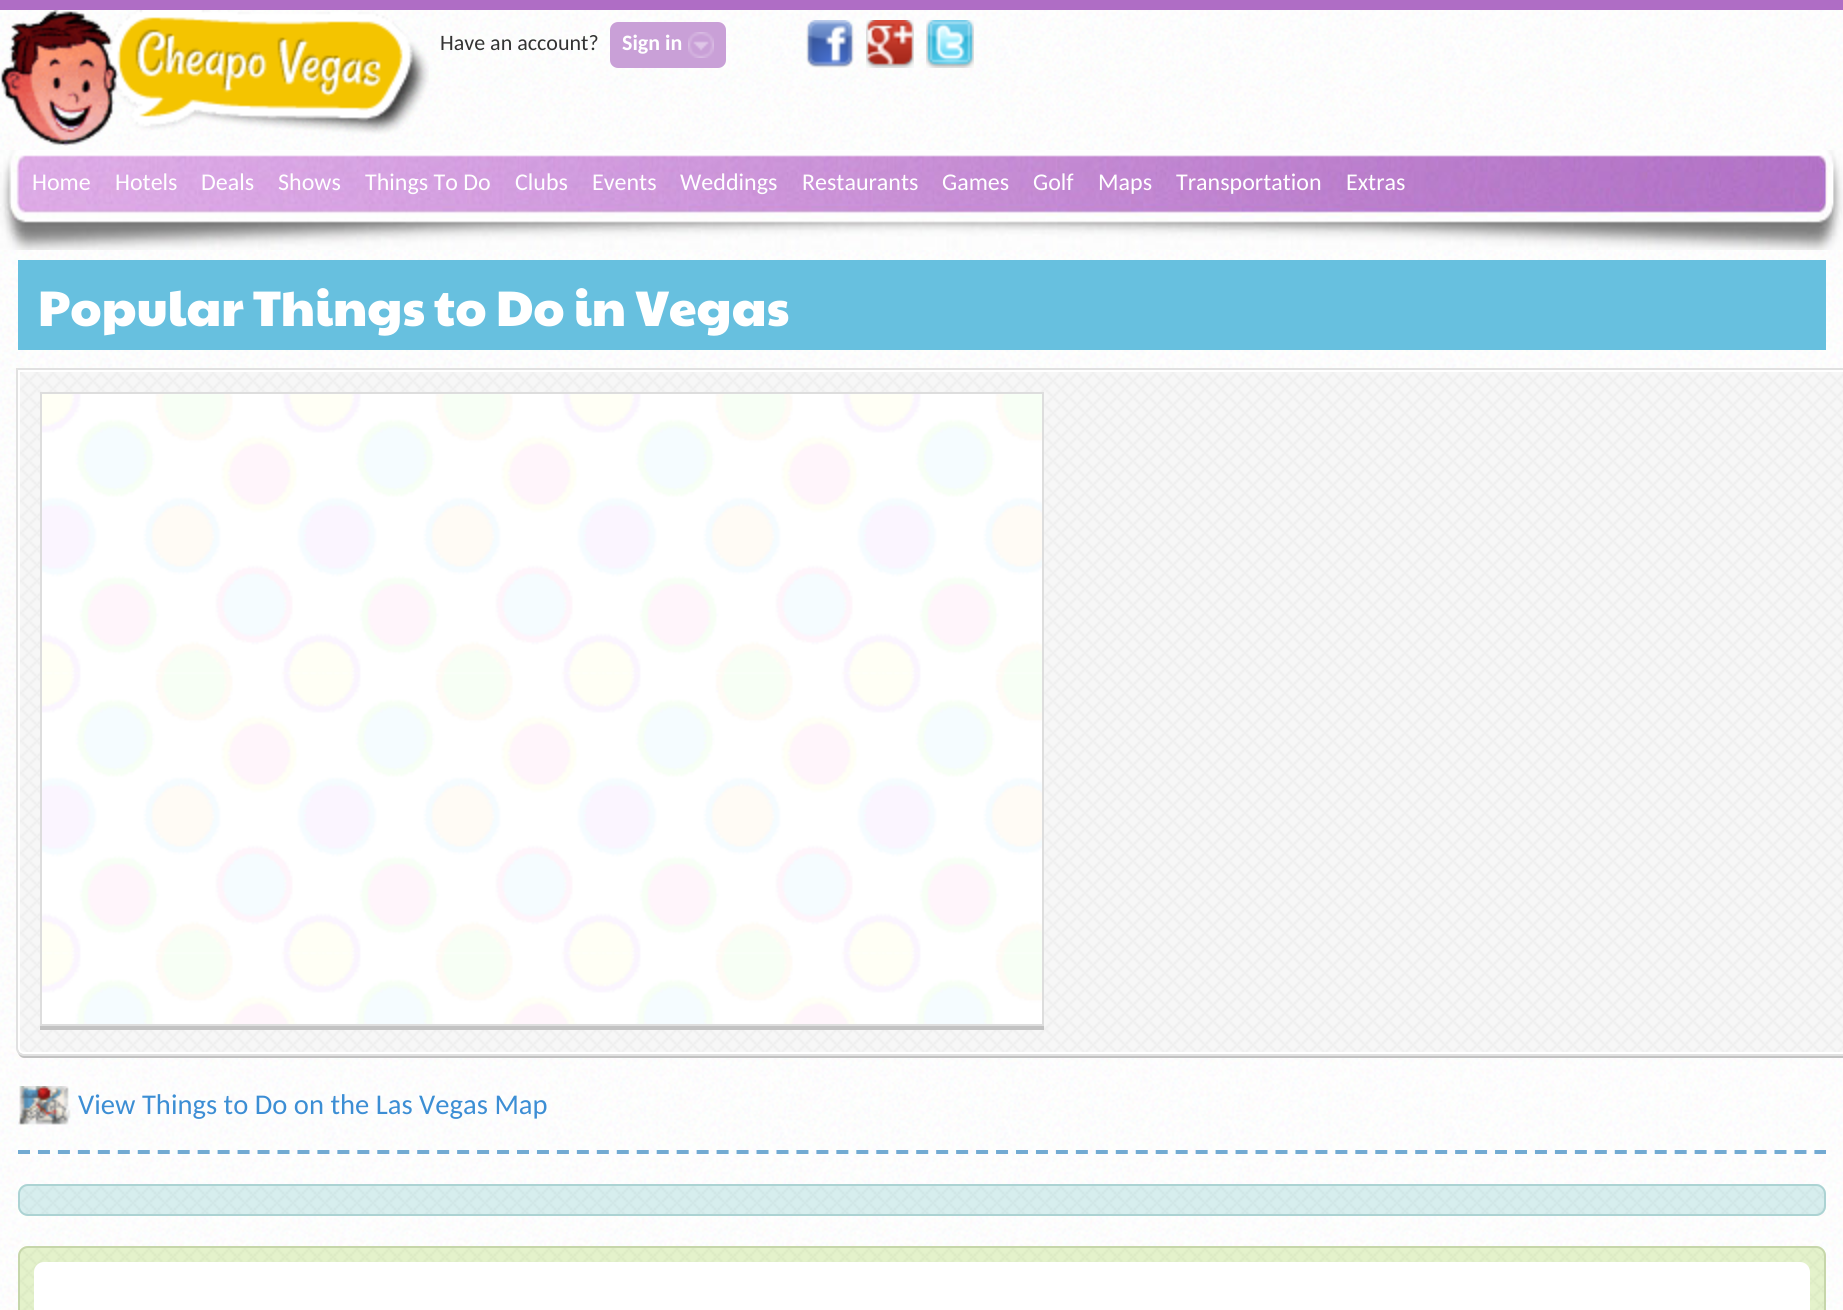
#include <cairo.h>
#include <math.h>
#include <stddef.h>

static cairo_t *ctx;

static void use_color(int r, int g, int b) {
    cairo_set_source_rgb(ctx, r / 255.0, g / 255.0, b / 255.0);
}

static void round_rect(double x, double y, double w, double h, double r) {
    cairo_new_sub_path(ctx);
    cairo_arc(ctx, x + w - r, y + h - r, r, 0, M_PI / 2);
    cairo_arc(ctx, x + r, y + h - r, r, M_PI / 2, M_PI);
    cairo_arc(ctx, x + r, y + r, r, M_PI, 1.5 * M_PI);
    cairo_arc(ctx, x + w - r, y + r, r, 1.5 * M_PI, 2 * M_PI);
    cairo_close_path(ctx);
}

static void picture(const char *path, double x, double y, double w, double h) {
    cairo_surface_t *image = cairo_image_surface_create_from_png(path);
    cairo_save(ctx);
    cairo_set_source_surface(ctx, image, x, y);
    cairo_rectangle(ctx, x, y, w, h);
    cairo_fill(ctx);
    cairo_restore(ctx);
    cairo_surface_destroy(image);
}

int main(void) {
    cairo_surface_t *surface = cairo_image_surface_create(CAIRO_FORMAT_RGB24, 1843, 1310);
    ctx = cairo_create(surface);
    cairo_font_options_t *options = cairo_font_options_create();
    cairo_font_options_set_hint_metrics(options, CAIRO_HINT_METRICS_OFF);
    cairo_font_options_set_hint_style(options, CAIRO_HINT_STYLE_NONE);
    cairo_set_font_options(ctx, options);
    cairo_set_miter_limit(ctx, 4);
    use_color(255, 255, 255);
    cairo_paint(ctx);
    picture("img1.png", 0, 10, 1843, 1300);
    use_color(175, 109, 197);
    cairo_rectangle(ctx, 0, 0, 1843, 10);
    cairo_fill(ctx);
    picture("img2.png", 0, 10, 429, 136);
    cairo_select_font_face(ctx, "Carlito", CAIRO_FONT_SLANT_NORMAL, CAIRO_FONT_WEIGHT_NORMAL);
    cairo_set_font_size(ctx, 22);
    use_color(51, 51, 51);
    cairo_move_to(ctx, 440, 50);
    cairo_show_text(ctx, "Have an account?");
    use_color(201, 160, 215);
    round_rect(610, 22, 116, 46, 8);
    cairo_fill(ctx);
    cairo_select_font_face(ctx, "Carlito", CAIRO_FONT_SLANT_NORMAL, CAIRO_FONT_WEIGHT_BOLD);
    use_color(255, 255, 255);
    cairo_move_to(ctx, 622, 50);
    cairo_show_text(ctx, "Sign in");
    picture("img3.png", 688, 32, 26, 26);
    picture("img4.png", 0, 150, 1843, 100);
    picture("img5.png", 806, 20, 48, 48);
    picture("img6.png", 866, 20, 48, 48);
    picture("img7.png", 926, 20, 48, 48);
    cairo_select_font_face(ctx, "Carlito", CAIRO_FONT_SLANT_NORMAL, CAIRO_FONT_WEIGHT_NORMAL);
    cairo_set_font_size(ctx, 24);
    cairo_move_to(ctx, 32, 190);
    cairo_show_text(ctx, "Home");
    cairo_move_to(ctx, 115, 190);
    cairo_show_text(ctx, "Hotels");
    cairo_move_to(ctx, 201, 190);
    cairo_show_text(ctx, "Deals");
    cairo_move_to(ctx, 278, 190);
    cairo_show_text(ctx, "Shows");
    cairo_move_to(ctx, 365, 190);
    cairo_show_text(ctx, "Things To Do");
    cairo_move_to(ctx, 515, 190);
    cairo_show_text(ctx, "Clubs");
    cairo_move_to(ctx, 592, 190);
    cairo_show_text(ctx, "Events");
    cairo_move_to(ctx, 680, 190);
    cairo_show_text(ctx, "Weddings");
    cairo_move_to(ctx, 802, 190);
    cairo_show_text(ctx, "Restaurants");
    cairo_move_to(ctx, 942, 190);
    cairo_show_text(ctx, "Games");
    cairo_move_to(ctx, 1033, 190);
    cairo_show_text(ctx, "Golf");
    cairo_move_to(ctx, 1098, 190);
    cairo_show_text(ctx, "Maps");
    cairo_move_to(ctx, 1176, 190);
    cairo_show_text(ctx, "Transportation");
    cairo_move_to(ctx, 1346, 190);
    cairo_show_text(ctx, "Extras");
    use_color(103, 192, 223);
    cairo_rectangle(ctx, 18, 260, 1808, 90);
    cairo_fill(ctx);
    cairo_select_font_face(ctx, "Paytone One", CAIRO_FONT_SLANT_NORMAL, CAIRO_FONT_WEIGHT_NORMAL);
    cairo_set_font_size(ctx, 50);
    use_color(255, 255, 255);
    cairo_move_to(ctx, 38, 326);
    cairo_show_text(ctx, "Popular Things to Do in Vegas");
    cairo_new_path(ctx);
    cairo_move_to(ctx, 18, 1152);
    cairo_line_to(ctx, 1826, 1152);
    use_color(114, 170, 210);
    cairo_set_line_width(ctx, 4);
    cairo_set_dash(ctx, (double[]){12, 7.96}, 2, 0);
    cairo_stroke(ctx);
    use_color(194, 194, 194);
    cairo_new_path(ctx);
    cairo_move_to(ctx, 18, 1048);
    cairo_line_to(ctx, 18, 1052);
    cairo_curve_to(ctx, 18, 1055, 21, 1058, 24, 1058);
    cairo_line_to(ctx, 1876, 1058);
    cairo_curve_to(ctx, 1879, 1058, 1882, 1055, 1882, 1052);
    cairo_line_to(ctx, 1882, 1048);
    cairo_curve_to(ctx, 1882, 1051, 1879, 1054, 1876, 1054);
    cairo_line_to(ctx, 24, 1054);
    cairo_curve_to(ctx, 21, 1054, 18, 1051, 18, 1048);
    cairo_close_path(ctx);
    cairo_fill(ctx);
    picture("img8.png", 18, 372, 1825, 682);
    cairo_new_path(ctx);
    cairo_move_to(ctx, 19, 371);
    cairo_line_to(ctx, 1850, 371);
    cairo_line_to(ctx, 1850, 1048);
    cairo_curve_to(ctx, 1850, 1051, 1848, 1053, 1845, 1053);
    cairo_line_to(ctx, 24, 1053);
    cairo_curve_to(ctx, 21, 1053, 19, 1051, 19, 1048);
    cairo_close_path(ctx);
    use_color(255, 255, 255);
    cairo_set_line_width(ctx, 2);
    cairo_set_dash(ctx, NULL, 0, 0);
    cairo_stroke(ctx);
    use_color(194, 194, 194);
    cairo_rectangle(ctx, 40, 1026, 1004, 4);
    cairo_fill(ctx);
    picture("img9.png", 42, 394, 1000, 630);
    cairo_rectangle(ctx, 41, 393, 1002, 632);
    use_color(221, 221, 221);
    cairo_stroke(ctx);
    cairo_new_path(ctx);
    cairo_move_to(ctx, 17, 369);
    cairo_line_to(ctx, 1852, 369);
    cairo_line_to(ctx, 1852, 1048);
    cairo_curve_to(ctx, 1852, 1052, 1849, 1055, 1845, 1055);
    cairo_line_to(ctx, 24, 1055);
    cairo_curve_to(ctx, 20, 1055, 17, 1052, 17, 1048);
    cairo_close_path(ctx);
    use_color(225, 225, 225);
    cairo_stroke(ctx);
    picture("img10.png", 18, 1086, 53, 39);
    cairo_select_font_face(ctx, "Carlito", CAIRO_FONT_SLANT_NORMAL, CAIRO_FONT_WEIGHT_NORMAL);
    cairo_set_font_size(ctx, 28.6);
    use_color(60, 142, 212);
    cairo_move_to(ctx, 78, 1114);
    cairo_show_text(ctx, "View Things to Do on the Las Vegas Map");
    picture("img11.png", 18, 1184, 1808, 32);
    round_rect(19, 1185, 1806, 30, 9);
    use_color(172, 211, 211);
    cairo_stroke(ctx);
    picture("img12.png", 18, 1246, 1808, 64);
    round_rect(19, 1247, 1806, 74, 9);
    use_color(198, 214, 170);
    cairo_stroke(ctx);
    use_color(255, 255, 255);
    round_rect(34, 1262, 1776, 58, 10);
    cairo_fill(ctx);
    cairo_surface_write_to_png(surface, "result.png");
    cairo_font_options_destroy(options);
    cairo_destroy(ctx);
    cairo_surface_destroy(surface);
    return 0;
}
